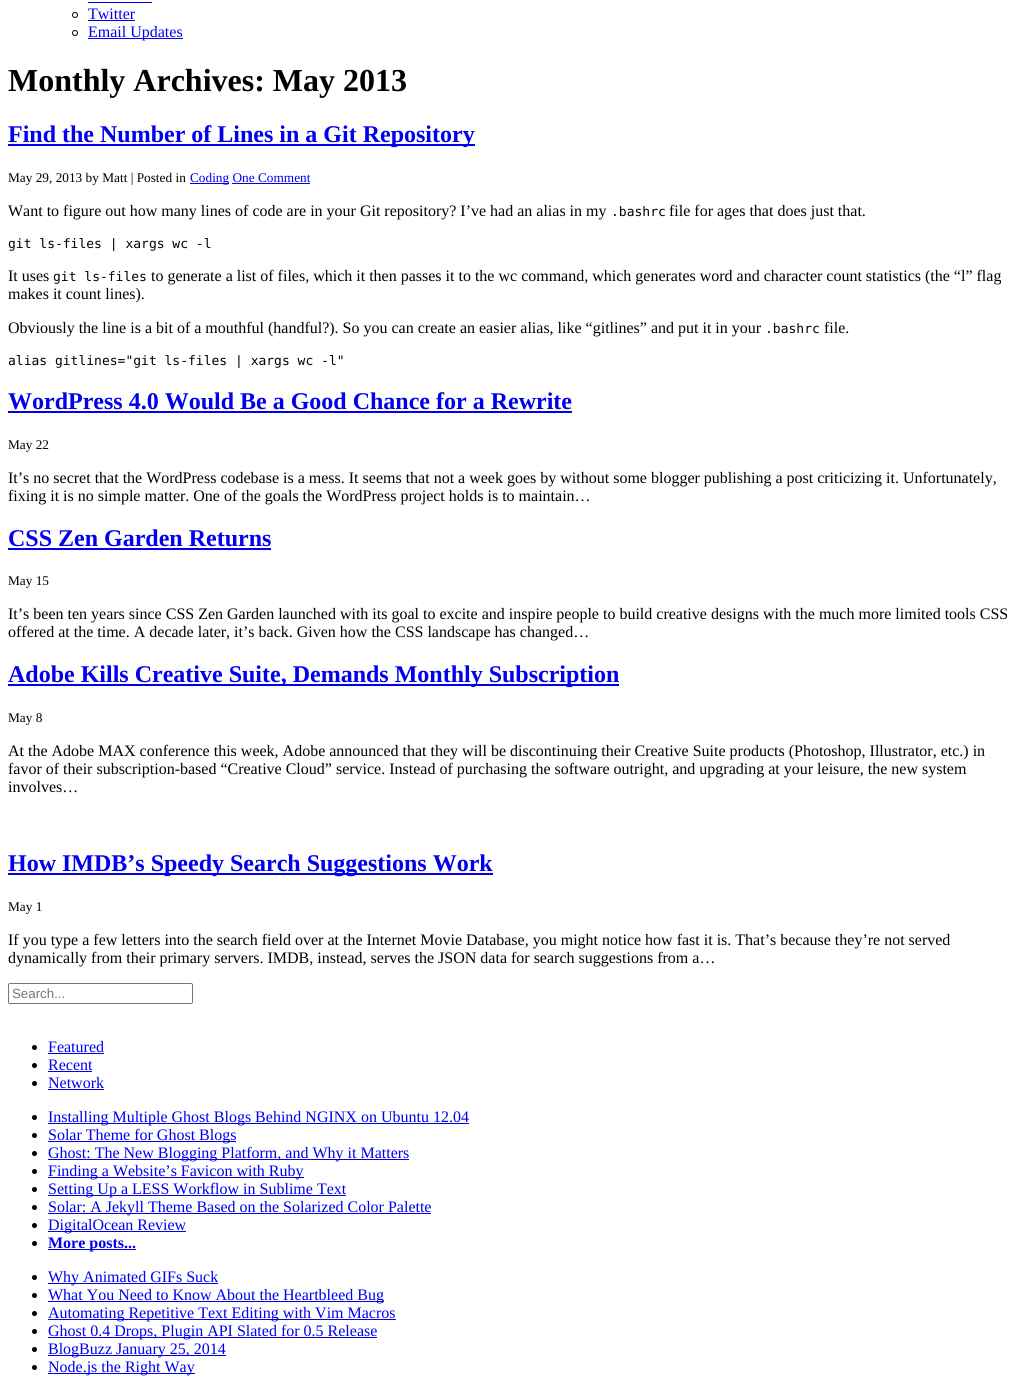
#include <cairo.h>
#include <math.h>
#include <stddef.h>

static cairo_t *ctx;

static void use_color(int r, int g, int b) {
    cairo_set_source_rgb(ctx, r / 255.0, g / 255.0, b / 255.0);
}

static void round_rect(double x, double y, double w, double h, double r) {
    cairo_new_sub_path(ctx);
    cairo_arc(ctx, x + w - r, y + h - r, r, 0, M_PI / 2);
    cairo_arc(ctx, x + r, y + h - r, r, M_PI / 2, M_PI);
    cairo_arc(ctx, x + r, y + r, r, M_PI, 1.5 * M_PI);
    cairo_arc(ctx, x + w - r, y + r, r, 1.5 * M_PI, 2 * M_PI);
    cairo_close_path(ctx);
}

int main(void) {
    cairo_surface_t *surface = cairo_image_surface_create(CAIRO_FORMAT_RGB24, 1029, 1376);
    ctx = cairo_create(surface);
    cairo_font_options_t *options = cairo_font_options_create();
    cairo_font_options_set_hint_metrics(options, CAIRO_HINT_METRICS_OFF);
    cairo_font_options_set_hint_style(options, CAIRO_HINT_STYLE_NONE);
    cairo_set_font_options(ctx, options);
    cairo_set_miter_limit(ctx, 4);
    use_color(255, 255, 255);
    cairo_paint(ctx);
    use_color(0, 0, 238);
    cairo_rectangle(ctx, 88, 2, 64, 1);
    cairo_fill(ctx);
    cairo_arc(ctx, 75, 15, 2.5, 0, 2 * M_PI);
    use_color(0, 0, 0);
    cairo_set_line_width(ctx, 1);
    cairo_stroke(ctx);
    cairo_select_font_face(ctx, "Liberation Serif", CAIRO_FONT_SLANT_NORMAL, CAIRO_FONT_WEIGHT_NORMAL);
    cairo_set_font_size(ctx, 16);
    use_color(0, 0, 238);
    cairo_move_to(ctx, 88, 19);
    cairo_show_text(ctx, "Twitter");
    cairo_rectangle(ctx, 88, 20, 47, 1);
    cairo_fill(ctx);
    cairo_arc(ctx, 75, 33, 2.5, 0, 2 * M_PI);
    use_color(0, 0, 0);
    cairo_stroke(ctx);
    use_color(0, 0, 238);
    cairo_rectangle(ctx, 88, 38, 95, 1);
    cairo_fill(ctx);
    cairo_move_to(ctx, 88, 37);
    cairo_show_text(ctx, "Email Updates");
    cairo_select_font_face(ctx, "Liberation Serif", CAIRO_FONT_SLANT_NORMAL, CAIRO_FONT_WEIGHT_BOLD);
    cairo_set_font_size(ctx, 32);
    use_color(0, 0, 0);
    cairo_move_to(ctx, 8, 91);
    cairo_show_text(ctx, "Monthly Archives: May 2013");
    use_color(0, 0, 238);
    cairo_rectangle(ctx, 8, 144, 467, 2);
    cairo_fill(ctx);
    cairo_set_font_size(ctx, 24);
    cairo_move_to(ctx, 8, 142);
    cairo_show_text(ctx, "Find the Number of Lines in a Git Repository");
    cairo_select_font_face(ctx, "Liberation Serif", CAIRO_FONT_SLANT_NORMAL, CAIRO_FONT_WEIGHT_NORMAL);
    cairo_set_font_size(ctx, 13.3);
    use_color(0, 0, 0);
    cairo_move_to(ctx, 8, 182);
    cairo_show_text(ctx, "May 29, 2013 by Matt | Posted in");
    use_color(0, 0, 238);
    cairo_rectangle(ctx, 190, 183, 39, 1);
    cairo_fill(ctx);
    cairo_move_to(ctx, 190, 182);
    cairo_show_text(ctx, "Coding One Comment");
    cairo_rectangle(ctx, 232, 183, 78, 1);
    cairo_fill(ctx);
    cairo_set_font_size(ctx, 16);
    use_color(0, 0, 0);
    cairo_move_to(ctx, 8, 216);
    cairo_show_text(ctx, "Want to figure out how many lines of code are in your Git repository? I’ve had an alias in my");
    cairo_select_font_face(ctx, "DejaVu Sans Mono", CAIRO_FONT_SLANT_NORMAL, CAIRO_FONT_WEIGHT_NORMAL);
    cairo_set_font_size(ctx, 13);
    cairo_move_to(ctx, 611, 216);
    cairo_show_text(ctx, ".bashrc");
    cairo_select_font_face(ctx, "Liberation Serif", CAIRO_FONT_SLANT_NORMAL, CAIRO_FONT_WEIGHT_NORMAL);
    cairo_set_font_size(ctx, 16);
    cairo_move_to(ctx, 669, 216);
    cairo_show_text(ctx, "file for ages that does just that.");
    cairo_select_font_face(ctx, "DejaVu Sans Mono", CAIRO_FONT_SLANT_NORMAL, CAIRO_FONT_WEIGHT_NORMAL);
    cairo_set_font_size(ctx, 13);
    cairo_move_to(ctx, 8, 248);
    cairo_show_text(ctx, "git ls-files | xargs wc -l");
    cairo_select_font_face(ctx, "Liberation Serif", CAIRO_FONT_SLANT_NORMAL, CAIRO_FONT_WEIGHT_NORMAL);
    cairo_set_font_size(ctx, 16);
    cairo_move_to(ctx, 8, 281);
    cairo_show_text(ctx, "It uses");
    cairo_select_font_face(ctx, "DejaVu Sans Mono", CAIRO_FONT_SLANT_NORMAL, CAIRO_FONT_WEIGHT_NORMAL);
    cairo_set_font_size(ctx, 13);
    cairo_move_to(ctx, 53, 281);
    cairo_show_text(ctx, "git ls-files");
    cairo_select_font_face(ctx, "Liberation Serif", CAIRO_FONT_SLANT_NORMAL, CAIRO_FONT_WEIGHT_NORMAL);
    cairo_set_font_size(ctx, 16);
    cairo_move_to(ctx, 151, 281);
    cairo_show_text(ctx, "to generate a list of files, which it then passes it to the wc command, which generates word and character count statistics (the “l” flag");
    cairo_move_to(ctx, 8, 299);
    cairo_show_text(ctx, "makes it count lines).");
    cairo_move_to(ctx, 8, 333);
    cairo_show_text(ctx, "Obviously the line is a bit of a mouthful (handful?). So you can create an easier alias, like “gitlines” and put it in your");
    cairo_select_font_face(ctx, "DejaVu Sans Mono", CAIRO_FONT_SLANT_NORMAL, CAIRO_FONT_WEIGHT_NORMAL);
    cairo_set_font_size(ctx, 13);
    cairo_move_to(ctx, 765, 333);
    cairo_show_text(ctx, ".bashrc");
    cairo_select_font_face(ctx, "Liberation Serif", CAIRO_FONT_SLANT_NORMAL, CAIRO_FONT_WEIGHT_NORMAL);
    cairo_set_font_size(ctx, 16);
    cairo_move_to(ctx, 824, 333);
    cairo_show_text(ctx, "file.");
    cairo_select_font_face(ctx, "DejaVu Sans Mono", CAIRO_FONT_SLANT_NORMAL, CAIRO_FONT_WEIGHT_NORMAL);
    cairo_set_font_size(ctx, 13);
    cairo_move_to(ctx, 8, 365);
    cairo_show_text(ctx, "alias gitlines=\"git ls-files | xargs wc -l\"");
    cairo_select_font_face(ctx, "Liberation Serif", CAIRO_FONT_SLANT_NORMAL, CAIRO_FONT_WEIGHT_BOLD);
    cairo_set_font_size(ctx, 24);
    use_color(0, 0, 238);
    cairo_move_to(ctx, 8, 409);
    cairo_show_text(ctx, "WordPress 4.0 Would Be a Good Chance for a Rewrite");
    cairo_rectangle(ctx, 8, 411, 564, 2);
    cairo_fill(ctx);
    cairo_select_font_face(ctx, "Liberation Serif", CAIRO_FONT_SLANT_NORMAL, CAIRO_FONT_WEIGHT_NORMAL);
    cairo_set_font_size(ctx, 13.3);
    use_color(0, 0, 0);
    cairo_move_to(ctx, 8, 449);
    cairo_show_text(ctx, "May 22");
    cairo_set_font_size(ctx, 16);
    cairo_move_to(ctx, 8, 483);
    cairo_show_text(ctx, "It’s no secret that the WordPress codebase is a mess. It seems that not a week goes by without some blogger publishing a post criticizing it. Unfortunately,");
    cairo_move_to(ctx, 8, 501);
    cairo_show_text(ctx, "fixing it is no simple matter. One of the goals the WordPress project holds is to maintain…");
    cairo_select_font_face(ctx, "Liberation Serif", CAIRO_FONT_SLANT_NORMAL, CAIRO_FONT_WEIGHT_BOLD);
    cairo_set_font_size(ctx, 24);
    use_color(0, 0, 238);
    cairo_move_to(ctx, 8, 546);
    cairo_show_text(ctx, "CSS Zen Garden Returns");
    cairo_rectangle(ctx, 8, 548, 263, 2);
    cairo_fill(ctx);
    cairo_select_font_face(ctx, "Liberation Serif", CAIRO_FONT_SLANT_NORMAL, CAIRO_FONT_WEIGHT_NORMAL);
    cairo_set_font_size(ctx, 13.3);
    use_color(0, 0, 0);
    cairo_move_to(ctx, 8, 585);
    cairo_show_text(ctx, "May 15");
    cairo_set_font_size(ctx, 16);
    cairo_move_to(ctx, 8, 619);
    cairo_show_text(ctx, "It’s been ten years since CSS Zen Garden launched with its goal to excite and inspire people to build creative designs with the much more limited tools CSS");
    cairo_move_to(ctx, 8, 637);
    cairo_show_text(ctx, "offered at the time. A decade later, it’s back. Given how the CSS landscape has changed…");
    use_color(0, 0, 238);
    cairo_rectangle(ctx, 8, 684, 611, 2);
    cairo_fill(ctx);
    cairo_select_font_face(ctx, "Liberation Serif", CAIRO_FONT_SLANT_NORMAL, CAIRO_FONT_WEIGHT_BOLD);
    cairo_set_font_size(ctx, 24);
    cairo_move_to(ctx, 8, 682);
    cairo_show_text(ctx, "Adobe Kills Creative Suite, Demands Monthly Subscription");
    cairo_select_font_face(ctx, "Liberation Serif", CAIRO_FONT_SLANT_NORMAL, CAIRO_FONT_WEIGHT_NORMAL);
    cairo_set_font_size(ctx, 13.3);
    use_color(0, 0, 0);
    cairo_move_to(ctx, 8, 722);
    cairo_show_text(ctx, "May 8");
    cairo_set_font_size(ctx, 16);
    cairo_move_to(ctx, 8, 756);
    cairo_show_text(ctx, "At the Adobe MAX conference this week, Adobe announced that they will be discontinuing their Creative Suite products (Photoshop, Illustrator, etc.) in");
    cairo_move_to(ctx, 8, 774);
    cairo_show_text(ctx, "favor of their subscription-based “Creative Cloud” service. Instead of purchasing the software outright, and upgrading at your leisure, the new system");
    cairo_move_to(ctx, 8, 792);
    cairo_show_text(ctx, "involves…");
    use_color(0, 0, 238);
    cairo_rectangle(ctx, 8, 873, 485, 2);
    cairo_fill(ctx);
    cairo_select_font_face(ctx, "Liberation Serif", CAIRO_FONT_SLANT_NORMAL, CAIRO_FONT_WEIGHT_BOLD);
    cairo_set_font_size(ctx, 24);
    cairo_move_to(ctx, 8, 871);
    cairo_show_text(ctx, "How IMDB’s Speedy Search Suggestions Work");
    cairo_select_font_face(ctx, "Liberation Serif", CAIRO_FONT_SLANT_NORMAL, CAIRO_FONT_WEIGHT_NORMAL);
    cairo_set_font_size(ctx, 13.3);
    use_color(0, 0, 0);
    cairo_move_to(ctx, 8, 911);
    cairo_show_text(ctx, "May 1");
    cairo_set_font_size(ctx, 16);
    cairo_move_to(ctx, 8, 945);
    cairo_show_text(ctx, "If you type a few letters into the search field over at the Internet Movie Database, you might notice how fast it is. That’s because they’re not served");
    cairo_move_to(ctx, 8, 963);
    cairo_show_text(ctx, "dynamically from their primary servers. IMDB, instead, serves the JSON data for search suggestions from a…");
    round_rect(8.5, 983.5, 184, 20, 1.5);
    use_color(118, 118, 118);
    cairo_stroke(ctx);
    cairo_select_font_face(ctx, "Liberation Sans", CAIRO_FONT_SLANT_NORMAL, CAIRO_FONT_WEIGHT_NORMAL);
    cairo_set_font_size(ctx, 13.3);
    use_color(117, 117, 117);
    cairo_move_to(ctx, 12, 998);
    cairo_show_text(ctx, "Search...");
    use_color(0, 0, 0);
    cairo_new_path(ctx);
    cairo_arc(ctx, 34.5, 1047.5, 2.5, 0, 2 * M_PI);
    cairo_fill(ctx);
    cairo_select_font_face(ctx, "Liberation Serif", CAIRO_FONT_SLANT_NORMAL, CAIRO_FONT_WEIGHT_NORMAL);
    cairo_set_font_size(ctx, 16);
    use_color(0, 0, 238);
    cairo_move_to(ctx, 48, 1052);
    cairo_show_text(ctx, "Featured");
    cairo_rectangle(ctx, 48, 1053, 56, 1);
    cairo_fill(ctx);
    use_color(0, 0, 0);
    cairo_arc(ctx, 34.5, 1065.5, 2.5, 0, 2 * M_PI);
    cairo_fill(ctx);
    use_color(0, 0, 238);
    cairo_move_to(ctx, 48, 1070);
    cairo_show_text(ctx, "Recent");
    cairo_rectangle(ctx, 48, 1071, 44, 1);
    cairo_fill(ctx);
    use_color(0, 0, 0);
    cairo_arc(ctx, 34.5, 1083.5, 2.5, 0, 2 * M_PI);
    cairo_fill(ctx);
    use_color(0, 0, 238);
    cairo_move_to(ctx, 48, 1088);
    cairo_show_text(ctx, "Network");
    cairo_rectangle(ctx, 48, 1089, 56, 1);
    cairo_fill(ctx);
    use_color(0, 0, 0);
    cairo_arc(ctx, 34.5, 1117.5, 2.5, 0, 2 * M_PI);
    cairo_fill(ctx);
    use_color(0, 0, 238);
    cairo_rectangle(ctx, 48, 1123, 421, 1);
    cairo_fill(ctx);
    cairo_move_to(ctx, 48, 1122);
    cairo_show_text(ctx, "Installing Multiple Ghost Blogs Behind NGINX on Ubuntu 12.04");
    use_color(0, 0, 0);
    cairo_new_path(ctx);
    cairo_arc(ctx, 34.5, 1135.5, 2.5, 0, 2 * M_PI);
    cairo_fill(ctx);
    use_color(0, 0, 238);
    cairo_rectangle(ctx, 48, 1141, 188, 1);
    cairo_fill(ctx);
    cairo_move_to(ctx, 48, 1140);
    cairo_show_text(ctx, "Solar Theme for Ghost Blogs");
    use_color(0, 0, 0);
    cairo_new_path(ctx);
    cairo_arc(ctx, 34.5, 1153.5, 2.5, 0, 2 * M_PI);
    cairo_fill(ctx);
    use_color(0, 0, 238);
    cairo_rectangle(ctx, 48, 1159, 361, 1);
    cairo_fill(ctx);
    cairo_move_to(ctx, 48, 1158);
    cairo_show_text(ctx, "Ghost: The New Blogging Platform, and Why it Matters");
    use_color(0, 0, 0);
    cairo_new_path(ctx);
    cairo_arc(ctx, 34.5, 1171.5, 2.5, 0, 2 * M_PI);
    cairo_fill(ctx);
    use_color(0, 0, 238);
    cairo_rectangle(ctx, 48, 1177, 256, 1);
    cairo_fill(ctx);
    cairo_move_to(ctx, 48, 1176);
    cairo_show_text(ctx, "Finding a Website’s Favicon with Ruby");
    use_color(0, 0, 0);
    cairo_new_path(ctx);
    cairo_arc(ctx, 34.5, 1189.5, 2.5, 0, 2 * M_PI);
    cairo_fill(ctx);
    use_color(0, 0, 238);
    cairo_rectangle(ctx, 48, 1195, 298, 1);
    cairo_fill(ctx);
    cairo_move_to(ctx, 48, 1194);
    cairo_show_text(ctx, "Setting Up a LESS Workflow in Sublime Text");
    use_color(0, 0, 0);
    cairo_new_path(ctx);
    cairo_arc(ctx, 34.5, 1207.5, 2.5, 0, 2 * M_PI);
    cairo_fill(ctx);
    use_color(0, 0, 238);
    cairo_rectangle(ctx, 48, 1213, 383, 1);
    cairo_fill(ctx);
    cairo_move_to(ctx, 48, 1212);
    cairo_show_text(ctx, "Solar: A Jekyll Theme Based on the Solarized Color Palette");
    use_color(0, 0, 0);
    cairo_new_path(ctx);
    cairo_arc(ctx, 34.5, 1225.5, 2.5, 0, 2 * M_PI);
    cairo_fill(ctx);
    use_color(0, 0, 238);
    cairo_rectangle(ctx, 48, 1231, 138, 1);
    cairo_fill(ctx);
    cairo_move_to(ctx, 48, 1230);
    cairo_show_text(ctx, "DigitalOcean Review");
    use_color(0, 0, 0);
    cairo_new_path(ctx);
    cairo_arc(ctx, 34.5, 1243.5, 2.5, 0, 2 * M_PI);
    cairo_fill(ctx);
    use_color(0, 0, 238);
    cairo_rectangle(ctx, 48, 1249, 88, 1);
    cairo_fill(ctx);
    cairo_select_font_face(ctx, "Liberation Serif", CAIRO_FONT_SLANT_NORMAL, CAIRO_FONT_WEIGHT_BOLD);
    cairo_move_to(ctx, 48, 1248);
    cairo_show_text(ctx, "More posts...");
    use_color(0, 0, 0);
    cairo_new_path(ctx);
    cairo_arc(ctx, 34.5, 1277.5, 2.5, 0, 2 * M_PI);
    cairo_fill(ctx);
    use_color(0, 0, 238);
    cairo_rectangle(ctx, 48, 1283, 170, 1);
    cairo_fill(ctx);
    cairo_select_font_face(ctx, "Liberation Serif", CAIRO_FONT_SLANT_NORMAL, CAIRO_FONT_WEIGHT_NORMAL);
    cairo_move_to(ctx, 48, 1282);
    cairo_show_text(ctx, "Why Animated GIFs Suck");
    use_color(0, 0, 0);
    cairo_new_path(ctx);
    cairo_arc(ctx, 34.5, 1295.5, 2.5, 0, 2 * M_PI);
    cairo_fill(ctx);
    use_color(0, 0, 238);
    cairo_rectangle(ctx, 48, 1301, 336, 1);
    cairo_fill(ctx);
    cairo_move_to(ctx, 48, 1300);
    cairo_show_text(ctx, "What You Need to Know About the Heartbleed Bug");
    use_color(0, 0, 0);
    cairo_new_path(ctx);
    cairo_arc(ctx, 34.5, 1313.5, 2.5, 0, 2 * M_PI);
    cairo_fill(ctx);
    use_color(0, 0, 238);
    cairo_rectangle(ctx, 48, 1319, 348, 1);
    cairo_fill(ctx);
    cairo_move_to(ctx, 48, 1318);
    cairo_show_text(ctx, "Automating Repetitive Text Editing with Vim Macros");
    use_color(0, 0, 0);
    cairo_new_path(ctx);
    cairo_arc(ctx, 34.5, 1331.5, 2.5, 0, 2 * M_PI);
    cairo_fill(ctx);
    use_color(0, 0, 238);
    cairo_rectangle(ctx, 48, 1337, 329, 1);
    cairo_fill(ctx);
    cairo_move_to(ctx, 48, 1336);
    cairo_show_text(ctx, "Ghost 0.4 Drops, Plugin API Slated for 0.5 Release");
    use_color(0, 0, 0);
    cairo_new_path(ctx);
    cairo_arc(ctx, 34.5, 1349.5, 2.5, 0, 2 * M_PI);
    cairo_fill(ctx);
    use_color(0, 0, 238);
    cairo_rectangle(ctx, 48, 1355, 178, 1);
    cairo_fill(ctx);
    cairo_move_to(ctx, 48, 1354);
    cairo_show_text(ctx, "BlogBuzz January 25, 2014");
    use_color(0, 0, 0);
    cairo_new_path(ctx);
    cairo_arc(ctx, 34.5, 1367.5, 2.5, 0, 2 * M_PI);
    cairo_fill(ctx);
    use_color(0, 0, 238);
    cairo_rectangle(ctx, 48, 1373, 147, 1);
    cairo_fill(ctx);
    cairo_move_to(ctx, 48, 1372);
    cairo_show_text(ctx, "Node.js the Right Way");
    cairo_surface_write_to_png(surface, "result.png");
    cairo_font_options_destroy(options);
    cairo_destroy(ctx);
    cairo_surface_destroy(surface);
    return 0;
}
